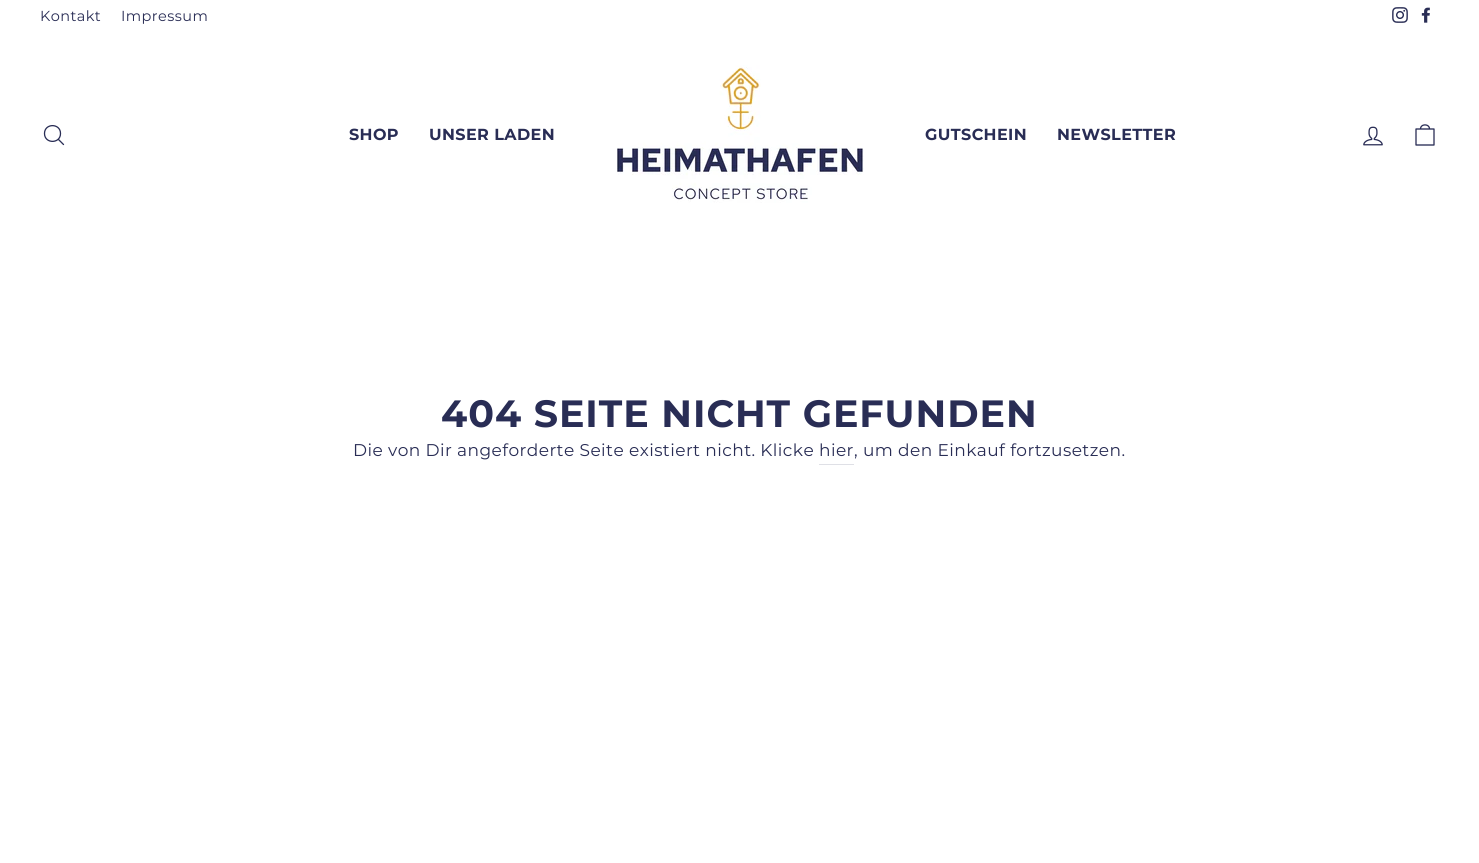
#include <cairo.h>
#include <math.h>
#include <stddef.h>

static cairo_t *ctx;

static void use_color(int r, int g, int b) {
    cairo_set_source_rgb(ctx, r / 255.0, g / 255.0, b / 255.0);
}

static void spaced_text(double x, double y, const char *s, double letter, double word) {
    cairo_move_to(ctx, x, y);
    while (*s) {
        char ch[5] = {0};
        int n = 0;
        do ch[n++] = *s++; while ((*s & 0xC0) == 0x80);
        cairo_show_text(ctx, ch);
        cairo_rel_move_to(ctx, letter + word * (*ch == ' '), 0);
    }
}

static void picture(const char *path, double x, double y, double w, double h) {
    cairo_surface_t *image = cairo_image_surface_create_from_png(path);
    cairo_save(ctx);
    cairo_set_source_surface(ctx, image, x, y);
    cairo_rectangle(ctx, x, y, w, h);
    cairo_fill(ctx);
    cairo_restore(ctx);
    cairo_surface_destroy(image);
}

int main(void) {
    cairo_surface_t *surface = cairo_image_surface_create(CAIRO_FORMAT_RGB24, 1479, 863);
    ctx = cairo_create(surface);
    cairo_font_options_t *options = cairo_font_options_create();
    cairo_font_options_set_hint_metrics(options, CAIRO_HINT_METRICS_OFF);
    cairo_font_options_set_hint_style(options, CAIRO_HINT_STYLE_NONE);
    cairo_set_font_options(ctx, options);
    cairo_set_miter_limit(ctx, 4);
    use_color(255, 255, 255);
    cairo_paint(ctx);
    cairo_select_font_face(ctx, "Montserrat", CAIRO_FONT_SLANT_NORMAL, CAIRO_FONT_WEIGHT_NORMAL);
    cairo_set_font_size(ctx, 14.5);
    use_color(41, 45, 85);
    spaced_text(40, 21, "Kontakt", 0.42, 0);
    spaced_text(121, 21, "Impressum", 0.42, 0);
    picture("img1.png", 1392, 7, 16, 16);
    picture("img2.png", 1421, 7, 9, 16);
    cairo_new_path(ctx);
    cairo_move_to(ctx, 60.5, 133.5);
    cairo_curve_to(ctx, 60.5, 144, 44.5, 144, 44.5, 133.5);
    cairo_curve_to(ctx, 44.5, 123, 60.5, 123, 60.5, 133.5);
    cairo_close_path(ctx);
    cairo_move_to(ctx, 63.5, 144.5);
    cairo_line_to(ctx, 58.5, 139.5);
    cairo_set_line_width(ctx, 1.3);
    cairo_set_line_cap(ctx, CAIRO_LINE_CAP_ROUND);
    cairo_set_line_join(ctx, CAIRO_LINE_JOIN_ROUND);
    cairo_stroke(ctx);
    cairo_select_font_face(ctx, "Montserrat", CAIRO_FONT_SLANT_NORMAL, CAIRO_FONT_WEIGHT_BOLD);
    cairo_set_font_size(ctx, 16);
    spaced_text(349, 140, "SHOP", 0.4, 0);
    spaced_text(429, 140, "UNSER LADEN", 0.4, 0);
    picture("img3.png", 617, 65, 247, 138);
    spaced_text(925, 140, "GUTSCHEIN", 0.4, 0);
    spaced_text(1057, 140, "NEWSLETTER", 0.4, 0);
    picture("img4.png", 1363, 126, 20, 20);
    cairo_new_path(ctx);
    cairo_move_to(ctx, 1416, 129);
    cairo_line_to(ctx, 1434, 129);
    cairo_line_to(ctx, 1434, 145);
    cairo_line_to(ctx, 1416, 145);
    cairo_close_path(ctx);
    cairo_move_to(ctx, 1420.5, 129);
    cairo_curve_to(ctx, 1420.5, 123.5, 1429.5, 123.5, 1429.5, 129);
    cairo_stroke(ctx);
    cairo_set_font_size(ctx, 38);
    spaced_text(441, 427, "404 SEITE NICHT GEFUNDEN", 0.95, 0);
    cairo_select_font_face(ctx, "Montserrat", CAIRO_FONT_SLANT_NORMAL, CAIRO_FONT_WEIGHT_NORMAL);
    cairo_set_font_size(ctx, 17);
    spaced_text(353, 456, "Die von Dir angeforderte Seite existiert nicht. Klicke hier", 0.42, 0);
    spaced_text(854, 456, ", um den Einkauf fortzusetzen.", 0.42, 0);
    use_color(223, 224, 230);
    cairo_rectangle(ctx, 819, 464, 35, 1);
    cairo_fill(ctx);
    cairo_surface_write_to_png(surface, "result.png");
    cairo_font_options_destroy(options);
    cairo_destroy(ctx);
    cairo_surface_destroy(surface);
    return 0;
}
